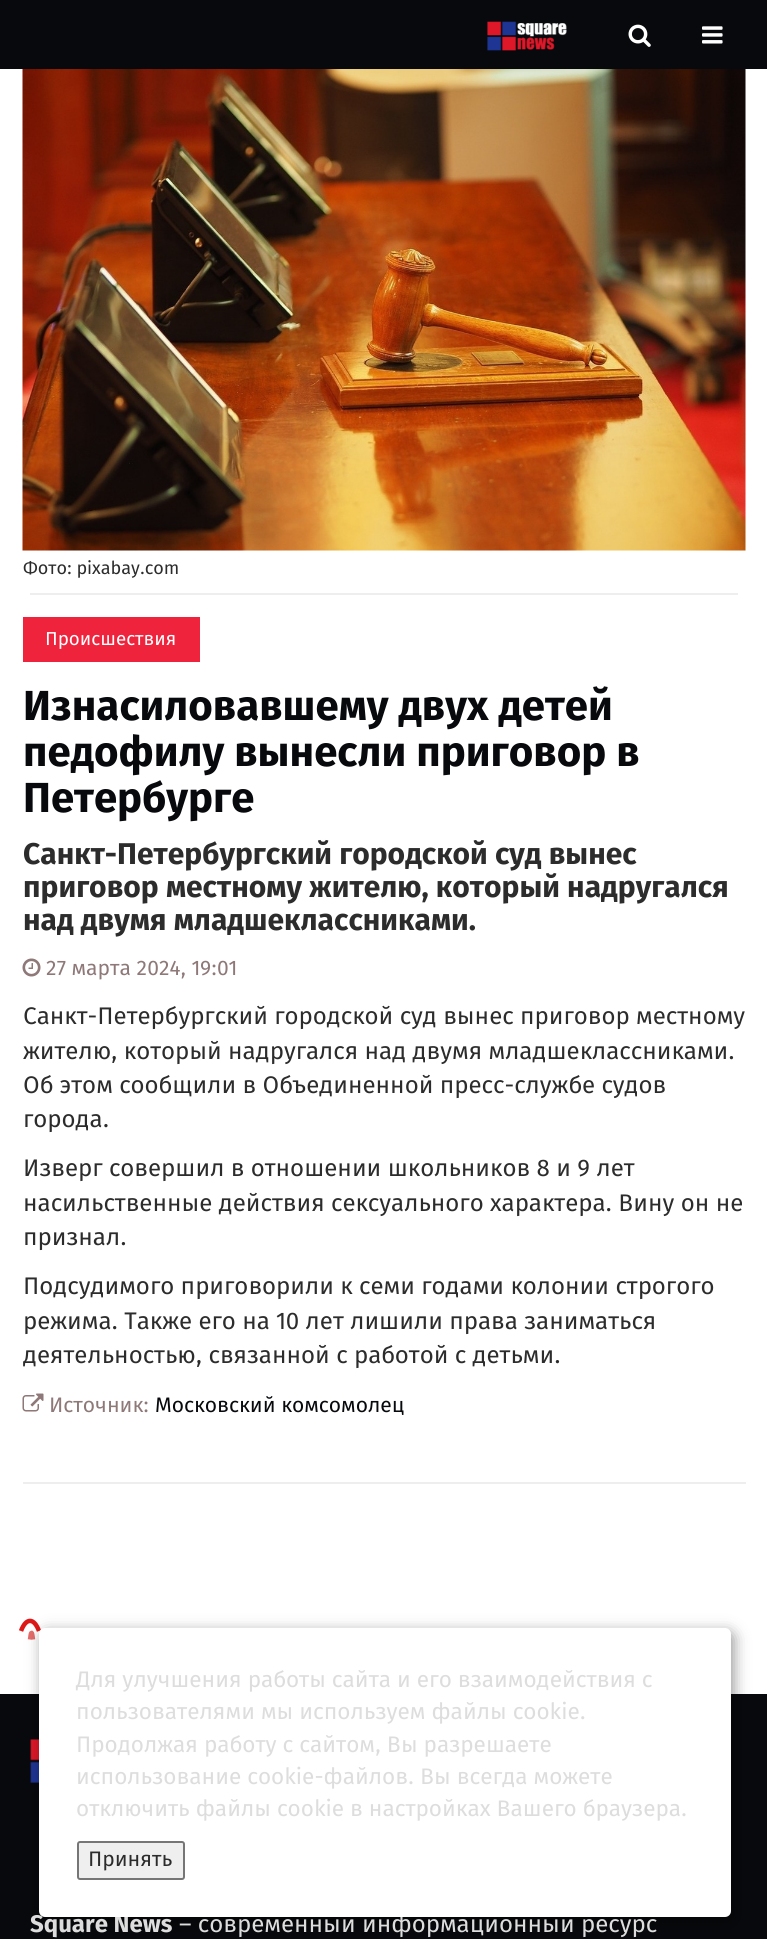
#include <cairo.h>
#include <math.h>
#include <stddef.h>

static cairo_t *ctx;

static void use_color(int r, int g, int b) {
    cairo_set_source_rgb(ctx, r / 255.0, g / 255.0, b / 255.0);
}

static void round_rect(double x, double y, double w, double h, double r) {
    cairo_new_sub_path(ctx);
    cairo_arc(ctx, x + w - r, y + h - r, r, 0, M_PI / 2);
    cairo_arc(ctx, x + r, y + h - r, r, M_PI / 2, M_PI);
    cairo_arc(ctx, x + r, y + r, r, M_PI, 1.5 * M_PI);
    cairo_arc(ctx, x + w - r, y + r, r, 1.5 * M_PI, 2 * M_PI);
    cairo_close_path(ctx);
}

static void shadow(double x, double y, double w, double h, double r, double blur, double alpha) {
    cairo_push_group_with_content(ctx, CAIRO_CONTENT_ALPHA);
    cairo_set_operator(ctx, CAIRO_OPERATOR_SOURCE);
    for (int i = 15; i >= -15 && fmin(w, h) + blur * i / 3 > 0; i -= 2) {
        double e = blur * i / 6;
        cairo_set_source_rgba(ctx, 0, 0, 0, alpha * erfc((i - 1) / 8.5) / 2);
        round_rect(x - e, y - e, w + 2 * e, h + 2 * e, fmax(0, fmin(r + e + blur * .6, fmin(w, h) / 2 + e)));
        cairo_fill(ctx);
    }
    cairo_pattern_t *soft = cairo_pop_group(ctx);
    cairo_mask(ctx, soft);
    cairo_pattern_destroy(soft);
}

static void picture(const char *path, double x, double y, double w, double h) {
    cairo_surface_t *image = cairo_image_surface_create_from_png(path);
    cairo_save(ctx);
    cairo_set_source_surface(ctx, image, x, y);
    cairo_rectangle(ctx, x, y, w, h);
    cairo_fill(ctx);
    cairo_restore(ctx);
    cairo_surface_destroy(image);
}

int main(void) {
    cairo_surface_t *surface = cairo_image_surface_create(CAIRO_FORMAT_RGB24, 767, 1939);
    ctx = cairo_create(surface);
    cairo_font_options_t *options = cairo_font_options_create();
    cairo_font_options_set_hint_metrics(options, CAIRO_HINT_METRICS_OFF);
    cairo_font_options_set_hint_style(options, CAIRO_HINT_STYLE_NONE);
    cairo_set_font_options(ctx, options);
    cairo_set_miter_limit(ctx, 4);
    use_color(255, 255, 255);
    cairo_paint(ctx);
    use_color(7, 9, 12);
    cairo_rectangle(ctx, 0, 0, 767, 69);
    cairo_fill(ctx);
    picture("img1.png", 487, 21, 80, 30);
    picture("img2.png", 628, 24, 23, 23);
    picture("img3.png", 702, 26, 21, 18);
    picture("img4.png", 22, 69, 724, 482);
    cairo_select_font_face(ctx, "Fira Sans", CAIRO_FONT_SLANT_NORMAL, CAIRO_FONT_WEIGHT_NORMAL);
    cairo_set_font_size(ctx, 18);
    use_color(44, 44, 44);
    cairo_move_to(ctx, 23, 574);
    cairo_show_text(ctx, "Фото: pixabay.com");
    use_color(238, 238, 238);
    cairo_rectangle(ctx, 30, 593, 708, 2);
    cairo_fill(ctx);
    use_color(239, 35, 60);
    cairo_rectangle(ctx, 23, 617, 177, 45);
    cairo_fill(ctx);
    cairo_set_font_size(ctx, 18.75);
    use_color(255, 255, 255);
    cairo_move_to(ctx, 45, 645);
    cairo_show_text(ctx, "Происшествия");
    cairo_select_font_face(ctx, "Fira Sans", CAIRO_FONT_SLANT_NORMAL, CAIRO_FONT_WEIGHT_BOLD);
    cairo_set_font_size(ctx, 42);
    use_color(7, 9, 12);
    cairo_move_to(ctx, 23, 720);
    cairo_show_text(ctx, "Изнасиловавшему двух детей");
    cairo_move_to(ctx, 23, 766);
    cairo_show_text(ctx, "педофилу вынесли приговор в");
    cairo_move_to(ctx, 23, 812);
    cairo_show_text(ctx, "Петербурге");
    cairo_set_font_size(ctx, 30);
    use_color(44, 44, 44);
    cairo_move_to(ctx, 23, 864);
    cairo_show_text(ctx, "Санкт-Петербургский городской суд вынес");
    cairo_move_to(ctx, 23, 897);
    cairo_show_text(ctx, "приговор местному жителю, который надругался");
    cairo_move_to(ctx, 23, 930);
    cairo_show_text(ctx, "над двумя младшеклассниками.");
    picture("img5.png", 22, 958, 19, 19);
    cairo_select_font_face(ctx, "Fira Sans", CAIRO_FONT_SLANT_NORMAL, CAIRO_FONT_WEIGHT_NORMAL);
    cairo_set_font_size(ctx, 21);
    use_color(142, 120, 120);
    cairo_move_to(ctx, 46, 975);
    cairo_show_text(ctx, "27 марта 2024, 19:01");
    cairo_set_font_size(ctx, 24);
    use_color(44, 44, 44);
    cairo_move_to(ctx, 23, 1024);
    cairo_show_text(ctx, "Санкт-Петербургский городской суд вынес приговор местному");
    cairo_move_to(ctx, 23, 1059);
    cairo_show_text(ctx, "жителю, который надругался над двумя младшеклассниками.");
    cairo_move_to(ctx, 23, 1093);
    cairo_show_text(ctx, "Об этом сообщили в Объединенной пресс-службе судов");
    cairo_move_to(ctx, 23, 1127);
    cairo_show_text(ctx, "города.");
    cairo_move_to(ctx, 23, 1176);
    cairo_show_text(ctx, "Изверг совершил в отношении школьников 8 и 9 лет");
    cairo_move_to(ctx, 23, 1211);
    cairo_show_text(ctx, "насильственные действия сексуального характера. Вину он не");
    cairo_move_to(ctx, 23, 1245);
    cairo_show_text(ctx, "признал.");
    cairo_move_to(ctx, 23, 1294);
    cairo_show_text(ctx, "Подсудимого приговорили к семи годами колонии строгого");
    cairo_move_to(ctx, 23, 1329);
    cairo_show_text(ctx, "режима. Также его на 10 лет лишили права зaниматься");
    cairo_move_to(ctx, 23, 1363);
    cairo_show_text(ctx, "деятельностью, связaнной с работой с детьми.");
    picture("img6.png", 22, 1393, 22, 19);
    cairo_set_font_size(ctx, 21);
    use_color(142, 120, 120);
    cairo_move_to(ctx, 49, 1412);
    cairo_show_text(ctx, "Источник:");
    use_color(7, 9, 12);
    cairo_move_to(ctx, 155, 1412);
    cairo_show_text(ctx, "Московский комсомолец");
    use_color(238, 238, 238);
    cairo_rectangle(ctx, 23, 1482, 723, 2);
    cairo_fill(ctx);
    cairo_new_path(ctx);
    cairo_move_to(ctx, 21, 1631);
    cairo_curve_to(ctx, 26, 1617.5, 34, 1617.5, 39, 1631);
    use_color(222, 23, 23);
    cairo_set_line_width(ctx, 4.5);
    cairo_stroke(ctx);
    cairo_new_path(ctx);
    cairo_move_to(ctx, 30, 1639.5);
    cairo_curve_to(ctx, 31, 1630.5, 32, 1630.5, 33, 1639.5);
    use_color(228, 107, 107);
    cairo_stroke(ctx);
    use_color(7, 9, 12);
    cairo_rectangle(ctx, 0, 1694, 767, 245);
    cairo_fill(ctx);
    picture("img7.png", 30, 1739, 9, 44);
    use_color(0, 0, 0);
    shadow(42, 1632, 692, 290, 6, 7.5, 0.4);
    cairo_select_font_face(ctx, "Fira Sans", CAIRO_FONT_SLANT_NORMAL, CAIRO_FONT_WEIGHT_BOLD);
    cairo_set_font_size(ctx, 24);
    use_color(221, 221, 221);
    cairo_move_to(ctx, 30, 1932);
    cairo_show_text(ctx, "Square News");
    cairo_select_font_face(ctx, "Fira Sans", CAIRO_FONT_SLANT_NORMAL, CAIRO_FONT_WEIGHT_NORMAL);
    cairo_move_to(ctx, 179, 1932);
    cairo_show_text(ctx, "– современный информационный ресурс");
    use_color(255, 255, 255);
    round_rect(39, 1628, 692, 289, 6);
    cairo_fill(ctx);
    cairo_set_font_size(ctx, 22.5);
    use_color(221, 221, 221);
    cairo_move_to(ctx, 76, 1687);
    cairo_show_text(ctx, "Для улучшения работы сайта и его взаимодействия с");
    cairo_move_to(ctx, 76, 1719);
    cairo_show_text(ctx, "пользователями мы используем файлы cookie.");
    cairo_move_to(ctx, 76, 1752);
    cairo_show_text(ctx, "Продолжая работу с сайтом, Вы разрешаете");
    cairo_move_to(ctx, 76, 1784);
    cairo_show_text(ctx, "использование cookie-файлов. Вы всегда можете");
    cairo_move_to(ctx, 76, 1816);
    cairo_show_text(ctx, "отключить файлы cookie в настройках Вашего браузера.");
    use_color(239, 239, 239);
    round_rect(78, 1842, 106, 37, 2);
    cairo_fill_preserve(ctx);
    use_color(118, 118, 118);
    cairo_set_line_width(ctx, 2);
    cairo_stroke(ctx);
    cairo_set_font_size(ctx, 21);
    use_color(44, 44, 44);
    cairo_move_to(ctx, 88, 1866);
    cairo_show_text(ctx, "Принять");
    cairo_surface_write_to_png(surface, "result.png");
    cairo_font_options_destroy(options);
    cairo_destroy(ctx);
    cairo_surface_destroy(surface);
    return 0;
}
